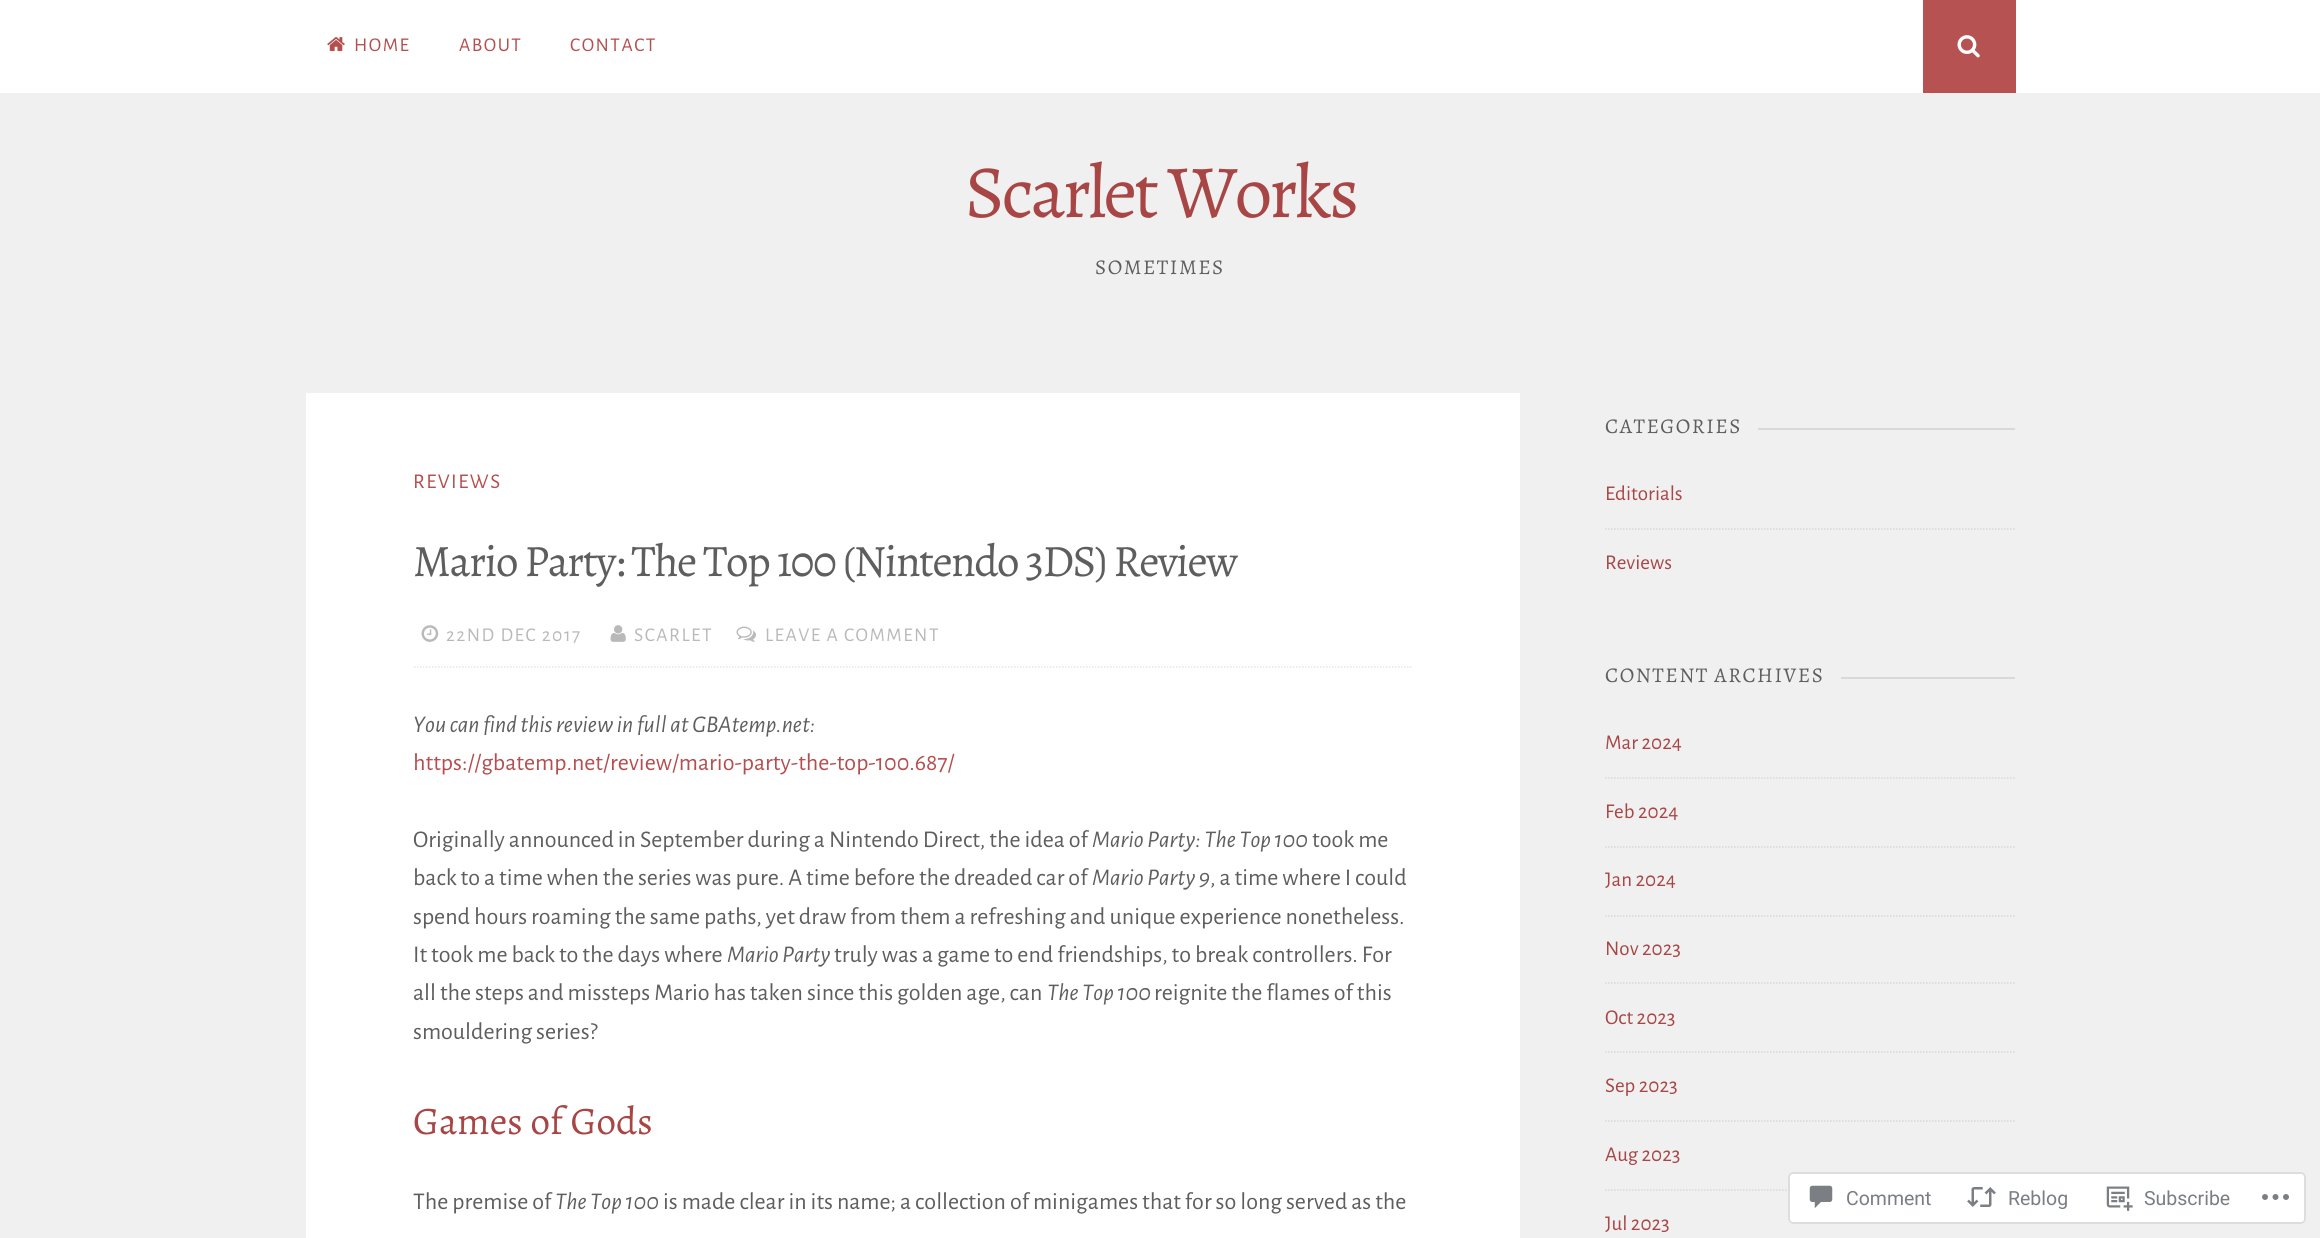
#include <cairo.h>
#include <math.h>
#include <stddef.h>

static cairo_t *ctx;

static void use_color(int r, int g, int b) {
    cairo_set_source_rgb(ctx, r / 255.0, g / 255.0, b / 255.0);
}

static void spaced_text(double x, double y, const char *s, double letter, double word) {
    cairo_move_to(ctx, x, y);
    while (*s) {
        char ch[5] = {0};
        int n = 0;
        do ch[n++] = *s++; while ((*s & 0xC0) == 0x80);
        cairo_show_text(ctx, ch);
        cairo_rel_move_to(ctx, letter + word * (*ch == ' '), 0);
    }
}

static void round_rect(double x, double y, double w, double h, double r) {
    cairo_new_sub_path(ctx);
    cairo_arc(ctx, x + w - r, y + h - r, r, 0, M_PI / 2);
    cairo_arc(ctx, x + r, y + h - r, r, M_PI / 2, M_PI);
    cairo_arc(ctx, x + r, y + r, r, M_PI, 1.5 * M_PI);
    cairo_arc(ctx, x + w - r, y + r, r, 1.5 * M_PI, 2 * M_PI);
    cairo_close_path(ctx);
}

static void picture(const char *path, double x, double y, double w, double h) {
    cairo_surface_t *image = cairo_image_surface_create_from_png(path);
    cairo_save(ctx);
    cairo_set_source_surface(ctx, image, x, y);
    cairo_rectangle(ctx, x, y, w, h);
    cairo_fill(ctx);
    cairo_restore(ctx);
    cairo_surface_destroy(image);
}

int main(void) {
    cairo_surface_t *surface = cairo_image_surface_create(CAIRO_FORMAT_RGB24, 2320, 1238);
    ctx = cairo_create(surface);
    cairo_font_options_t *options = cairo_font_options_create();
    cairo_font_options_set_hint_metrics(options, CAIRO_HINT_METRICS_OFF);
    cairo_font_options_set_hint_style(options, CAIRO_HINT_STYLE_NONE);
    cairo_set_font_options(ctx, options);
    cairo_set_miter_limit(ctx, 4);
    use_color(240, 240, 240);
    cairo_paint(ctx);
    use_color(255, 255, 255);
    cairo_rectangle(ctx, 0, 0, 2320, 93);
    cairo_fill(ctx);
    picture("img1.png", 327, 37, 18, 14);
    cairo_select_font_face(ctx, "Alegreya Sans", CAIRO_FONT_SLANT_NORMAL, CAIRO_FONT_WEIGHT_NORMAL);
    cairo_set_font_size(ctx, 19.5);
    use_color(181, 78, 78);
    spaced_text(354, 51, "HOME", 1.5, 0);
    spaced_text(459, 51, "ABOUT", 1.5, 0);
    spaced_text(570, 51, "CONTACT", 1.5, 0);
    use_color(182, 82, 82);
    cairo_rectangle(ctx, 1923, 0, 93, 93);
    cairo_fill(ctx);
    picture("img2.png", 1957, 35, 23, 23);
    cairo_select_font_face(ctx, "Alegreya", CAIRO_FONT_SLANT_NORMAL, CAIRO_FONT_WEIGHT_NORMAL);
    cairo_set_font_size(ctx, 75);
    use_color(168, 70, 70);
    spaced_text(965, 217, "Scarlet Works", -3, 0);
    cairo_set_font_size(ctx, 21);
    use_color(94, 94, 94);
    spaced_text(1095, 274, "SOMETIMES", 1.5, 0);
    use_color(255, 255, 255);
    cairo_rectangle(ctx, 306, 393, 1214, 845);
    cairo_fill(ctx);
    cairo_select_font_face(ctx, "Alegreya Sans", CAIRO_FONT_SLANT_NORMAL, CAIRO_FONT_WEIGHT_NORMAL);
    use_color(181, 78, 78);
    spaced_text(413, 488, "REVIEWS", 1.5, 0);
    cairo_select_font_face(ctx, "Alegreya", CAIRO_FONT_SLANT_NORMAL, CAIRO_FONT_WEIGHT_NORMAL);
    cairo_set_font_size(ctx, 45);
    use_color(94, 94, 94);
    spaced_text(413, 576, "Mario Party: The Top 100 (Nintendo 3DS) Review", -1.5, 0);
    cairo_new_path(ctx);
    cairo_move_to(ctx, 414, 667);
    cairo_line_to(ctx, 1411.5, 667);
    use_color(230, 230, 230);
    cairo_set_line_width(ctx, 1.5);
    cairo_set_dash(ctx, (double[]){1.5, 1.5}, 2, 0);
    cairo_stroke(ctx);
    picture("img3.png", 421, 625, 18, 17);
    cairo_select_font_face(ctx, "Alegreya Sans", CAIRO_FONT_SLANT_NORMAL, CAIRO_FONT_WEIGHT_NORMAL);
    cairo_set_font_size(ctx, 19.5);
    use_color(185, 185, 185);
    spaced_text(446, 641, "22ND DEC 2017", 1.5, 0);
    picture("img4.png", 610, 625, 16, 17);
    spaced_text(634, 641, "SCARLET", 1.5, 0);
    picture("img5.png", 736, 626, 20, 16);
    spaced_text(765, 641, "LEAVE A COMMENT", 1.5, 0);
    cairo_select_font_face(ctx, "Alegreya Sans", CAIRO_FONT_SLANT_ITALIC, CAIRO_FONT_WEIGHT_NORMAL);
    cairo_set_font_size(ctx, 24);
    use_color(94, 94, 94);
    cairo_move_to(ctx, 413, 732);
    cairo_show_text(ctx, "You can find this review in full at GBAtemp.net:");
    cairo_select_font_face(ctx, "Alegreya Sans", CAIRO_FONT_SLANT_NORMAL, CAIRO_FONT_WEIGHT_NORMAL);
    use_color(181, 78, 78);
    cairo_move_to(ctx, 413, 770);
    cairo_show_text(ctx, "https://gbatemp.net/review/mario-party-the-top-100.687/");
    use_color(94, 94, 94);
    cairo_move_to(ctx, 413, 847);
    cairo_show_text(ctx, "Originally announced in September during a Nintendo Direct, the idea of");
    cairo_select_font_face(ctx, "Alegreya Sans", CAIRO_FONT_SLANT_ITALIC, CAIRO_FONT_WEIGHT_NORMAL);
    cairo_move_to(ctx, 1092, 847);
    cairo_show_text(ctx, "Mario Party: The Top 100");
    cairo_select_font_face(ctx, "Alegreya Sans", CAIRO_FONT_SLANT_NORMAL, CAIRO_FONT_WEIGHT_NORMAL);
    cairo_move_to(ctx, 1312, 847);
    cairo_show_text(ctx, "took me");
    cairo_move_to(ctx, 413, 885);
    cairo_show_text(ctx, "back to a time when the series was pure. A time before the dreaded car of");
    cairo_select_font_face(ctx, "Alegreya Sans", CAIRO_FONT_SLANT_ITALIC, CAIRO_FONT_WEIGHT_NORMAL);
    cairo_move_to(ctx, 1092, 885);
    cairo_show_text(ctx, "Mario Party 9");
    cairo_select_font_face(ctx, "Alegreya Sans", CAIRO_FONT_SLANT_NORMAL, CAIRO_FONT_WEIGHT_NORMAL);
    cairo_move_to(ctx, 1210, 885);
    cairo_show_text(ctx, ", a time where I could");
    cairo_move_to(ctx, 413, 924);
    cairo_show_text(ctx, "spend hours roaming the same paths, yet draw from them a refreshing and unique experience nonetheless.");
    cairo_move_to(ctx, 413, 962);
    cairo_show_text(ctx, "It took me back to the days where");
    cairo_select_font_face(ctx, "Alegreya Sans", CAIRO_FONT_SLANT_ITALIC, CAIRO_FONT_WEIGHT_NORMAL);
    cairo_move_to(ctx, 727, 962);
    cairo_show_text(ctx, "Mario Party");
    cairo_select_font_face(ctx, "Alegreya Sans", CAIRO_FONT_SLANT_NORMAL, CAIRO_FONT_WEIGHT_NORMAL);
    cairo_move_to(ctx, 834, 962);
    cairo_show_text(ctx, "truly was a game to end friendships, to break controllers. For");
    cairo_move_to(ctx, 413, 1000);
    cairo_show_text(ctx, "all the steps and missteps Mario has taken since this golden age, can");
    cairo_select_font_face(ctx, "Alegreya Sans", CAIRO_FONT_SLANT_ITALIC, CAIRO_FONT_WEIGHT_NORMAL);
    cairo_move_to(ctx, 1047, 1000);
    cairo_show_text(ctx, "The Top 100");
    cairo_select_font_face(ctx, "Alegreya Sans", CAIRO_FONT_SLANT_NORMAL, CAIRO_FONT_WEIGHT_NORMAL);
    cairo_move_to(ctx, 1154, 1000);
    cairo_show_text(ctx, "reignite the flames of this");
    cairo_move_to(ctx, 413, 1039);
    cairo_show_text(ctx, "smouldering series?");
    cairo_select_font_face(ctx, "Alegreya", CAIRO_FONT_SLANT_NORMAL, CAIRO_FONT_WEIGHT_NORMAL);
    cairo_set_font_size(ctx, 39);
    use_color(168, 70, 70);
    cairo_move_to(ctx, 413, 1134);
    cairo_show_text(ctx, "Games of Gods");
    cairo_select_font_face(ctx, "Alegreya Sans", CAIRO_FONT_SLANT_NORMAL, CAIRO_FONT_WEIGHT_NORMAL);
    cairo_set_font_size(ctx, 24);
    use_color(94, 94, 94);
    cairo_move_to(ctx, 413, 1209);
    cairo_show_text(ctx, "The premise of");
    cairo_select_font_face(ctx, "Alegreya Sans", CAIRO_FONT_SLANT_ITALIC, CAIRO_FONT_WEIGHT_NORMAL);
    cairo_move_to(ctx, 555, 1209);
    cairo_show_text(ctx, "The Top 100");
    cairo_select_font_face(ctx, "Alegreya Sans", CAIRO_FONT_SLANT_NORMAL, CAIRO_FONT_WEIGHT_NORMAL);
    cairo_move_to(ctx, 663, 1209);
    cairo_show_text(ctx, "is made clear in its name; a collection of minigames that for so long served as the");
    cairo_select_font_face(ctx, "Alegreya", CAIRO_FONT_SLANT_NORMAL, CAIRO_FONT_WEIGHT_NORMAL);
    cairo_set_font_size(ctx, 21);
    spaced_text(1605, 433, "CATEGORIES", 1.5, 0);
    use_color(216, 216, 216);
    cairo_rectangle(ctx, 1758, 428, 257, 2);
    cairo_fill(ctx);
    cairo_select_font_face(ctx, "Alegreya Sans", CAIRO_FONT_SLANT_NORMAL, CAIRO_FONT_WEIGHT_NORMAL);
    use_color(168, 70, 70);
    cairo_move_to(ctx, 1605, 500);
    cairo_show_text(ctx, "Editorials");
    cairo_new_path(ctx);
    cairo_move_to(ctx, 1605, 529);
    cairo_line_to(ctx, 2014.5, 529);
    use_color(216, 216, 216);
    cairo_stroke(ctx);
    use_color(168, 70, 70);
    cairo_move_to(ctx, 1605, 569);
    cairo_show_text(ctx, "Reviews");
    cairo_select_font_face(ctx, "Alegreya", CAIRO_FONT_SLANT_NORMAL, CAIRO_FONT_WEIGHT_NORMAL);
    use_color(94, 94, 94);
    spaced_text(1605, 682, "CONTENT ARCHIVES", 1.5, 0);
    use_color(216, 216, 216);
    cairo_rectangle(ctx, 1841, 677, 174, 2);
    cairo_fill(ctx);
    cairo_select_font_face(ctx, "Alegreya Sans", CAIRO_FONT_SLANT_NORMAL, CAIRO_FONT_WEIGHT_NORMAL);
    use_color(168, 70, 70);
    cairo_move_to(ctx, 1605, 749);
    cairo_show_text(ctx, "Mar 2024");
    cairo_new_path(ctx);
    cairo_move_to(ctx, 1605, 778);
    cairo_line_to(ctx, 2014.5, 778);
    use_color(216, 216, 216);
    cairo_stroke(ctx);
    use_color(168, 70, 70);
    cairo_move_to(ctx, 1605, 818);
    cairo_show_text(ctx, "Feb 2024");
    cairo_new_path(ctx);
    cairo_move_to(ctx, 1605, 847);
    cairo_line_to(ctx, 2014.5, 847);
    use_color(216, 216, 216);
    cairo_stroke(ctx);
    use_color(168, 70, 70);
    cairo_move_to(ctx, 1605, 886);
    cairo_show_text(ctx, "Jan 2024");
    cairo_new_path(ctx);
    cairo_move_to(ctx, 1605, 916);
    cairo_line_to(ctx, 2014.5, 916);
    use_color(216, 216, 216);
    cairo_stroke(ctx);
    use_color(168, 70, 70);
    cairo_move_to(ctx, 1605, 955);
    cairo_show_text(ctx, "Nov 2023");
    cairo_new_path(ctx);
    cairo_move_to(ctx, 1605, 983);
    cairo_line_to(ctx, 2014.5, 983);
    use_color(216, 216, 216);
    cairo_stroke(ctx);
    use_color(168, 70, 70);
    cairo_move_to(ctx, 1605, 1024);
    cairo_show_text(ctx, "Oct 2023");
    cairo_new_path(ctx);
    cairo_move_to(ctx, 1605, 1052);
    cairo_line_to(ctx, 2014.5, 1052);
    use_color(216, 216, 216);
    cairo_stroke(ctx);
    use_color(168, 70, 70);
    cairo_move_to(ctx, 1605, 1092);
    cairo_show_text(ctx, "Sep 2023");
    cairo_new_path(ctx);
    cairo_move_to(ctx, 1605, 1121);
    cairo_line_to(ctx, 2014.5, 1121);
    use_color(216, 216, 216);
    cairo_stroke(ctx);
    use_color(168, 70, 70);
    cairo_move_to(ctx, 1605, 1161);
    cairo_show_text(ctx, "Aug 2023");
    cairo_new_path(ctx);
    cairo_move_to(ctx, 1605, 1190);
    cairo_line_to(ctx, 2014.5, 1190);
    use_color(216, 216, 216);
    cairo_stroke(ctx);
    use_color(168, 70, 70);
    cairo_move_to(ctx, 1605, 1230);
    cairo_show_text(ctx, "Jul 2023");
    cairo_set_source_rgba(ctx, 1, 1, 1, 0.98);
    round_rect(1788, 1172, 518, 52, 5);
    cairo_fill(ctx);
    round_rect(1789, 1173, 516, 50, 4);
    cairo_set_source_rgba(ctx, 0.863, 0.863, 0.871, 0.98);
    cairo_set_line_width(ctx, 2);
    cairo_set_dash(ctx, NULL, 0, 0);
    cairo_stroke(ctx);
    picture("img6.png", 1809, 1185, 24, 24);
    cairo_select_font_face(ctx, "Roboto", CAIRO_FONT_SLANT_NORMAL, CAIRO_FONT_WEIGHT_NORMAL);
    cairo_set_font_size(ctx, 19.5);
    use_color(122, 126, 132);
    cairo_move_to(ctx, 1846, 1205);
    cairo_show_text(ctx, "Comment");
    picture("img7.png", 1967, 1187, 29, 20);
    cairo_move_to(ctx, 2008, 1205);
    cairo_show_text(ctx, "Reblog");
    picture("img8.png", 2106, 1186, 27, 25);
    cairo_move_to(ctx, 2144, 1205);
    cairo_show_text(ctx, "Subscribe");
    picture("img9.png", 2262, 1194, 27, 6);
    cairo_surface_write_to_png(surface, "result.png");
    cairo_font_options_destroy(options);
    cairo_destroy(ctx);
    cairo_surface_destroy(surface);
    return 0;
}
